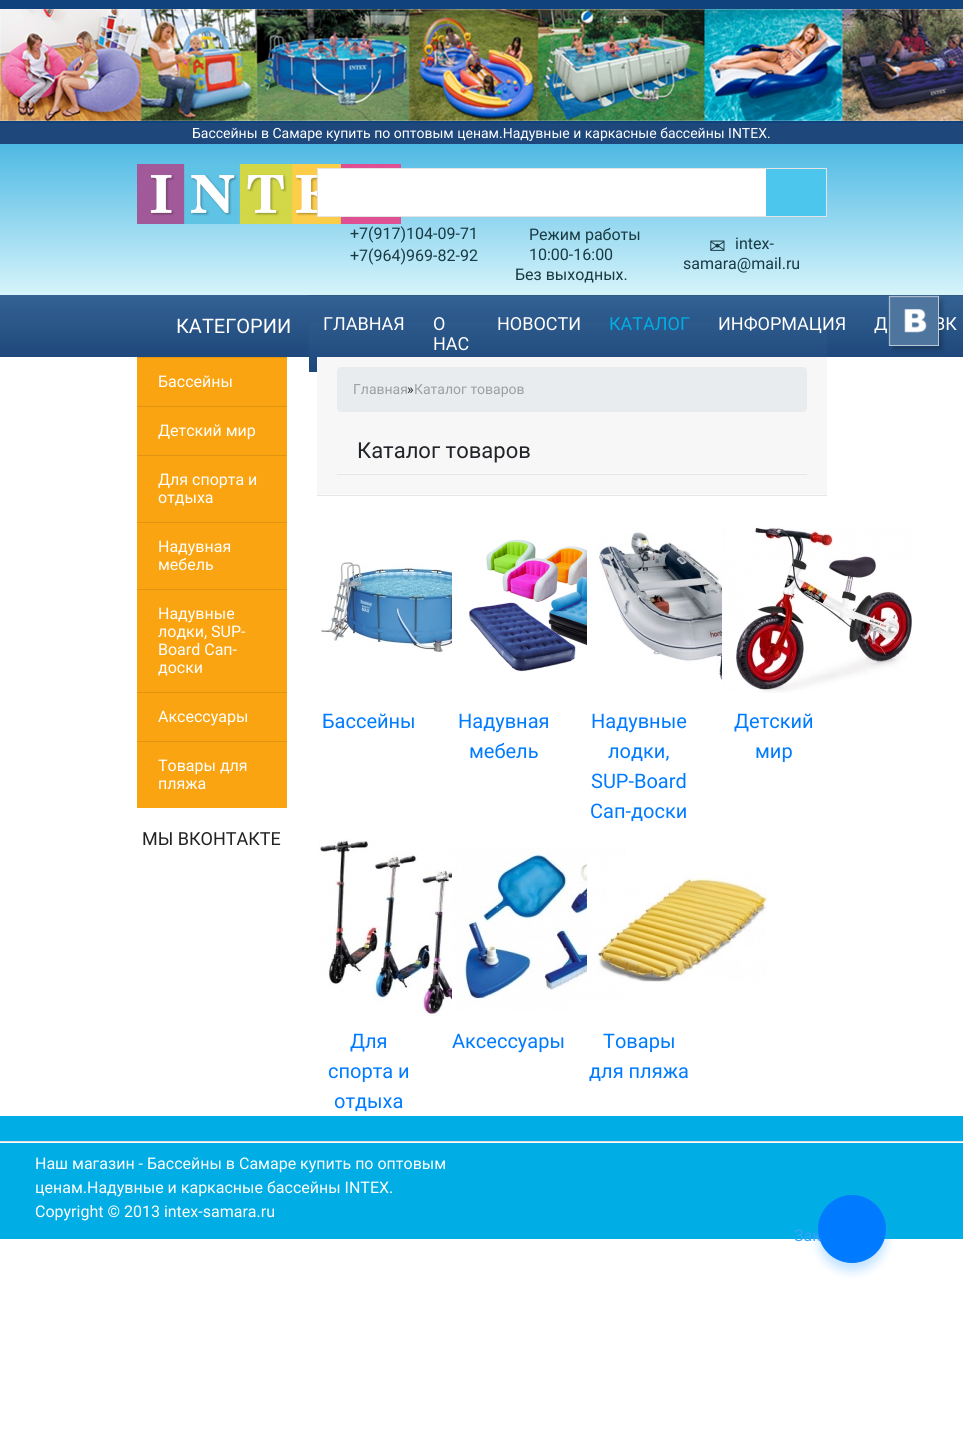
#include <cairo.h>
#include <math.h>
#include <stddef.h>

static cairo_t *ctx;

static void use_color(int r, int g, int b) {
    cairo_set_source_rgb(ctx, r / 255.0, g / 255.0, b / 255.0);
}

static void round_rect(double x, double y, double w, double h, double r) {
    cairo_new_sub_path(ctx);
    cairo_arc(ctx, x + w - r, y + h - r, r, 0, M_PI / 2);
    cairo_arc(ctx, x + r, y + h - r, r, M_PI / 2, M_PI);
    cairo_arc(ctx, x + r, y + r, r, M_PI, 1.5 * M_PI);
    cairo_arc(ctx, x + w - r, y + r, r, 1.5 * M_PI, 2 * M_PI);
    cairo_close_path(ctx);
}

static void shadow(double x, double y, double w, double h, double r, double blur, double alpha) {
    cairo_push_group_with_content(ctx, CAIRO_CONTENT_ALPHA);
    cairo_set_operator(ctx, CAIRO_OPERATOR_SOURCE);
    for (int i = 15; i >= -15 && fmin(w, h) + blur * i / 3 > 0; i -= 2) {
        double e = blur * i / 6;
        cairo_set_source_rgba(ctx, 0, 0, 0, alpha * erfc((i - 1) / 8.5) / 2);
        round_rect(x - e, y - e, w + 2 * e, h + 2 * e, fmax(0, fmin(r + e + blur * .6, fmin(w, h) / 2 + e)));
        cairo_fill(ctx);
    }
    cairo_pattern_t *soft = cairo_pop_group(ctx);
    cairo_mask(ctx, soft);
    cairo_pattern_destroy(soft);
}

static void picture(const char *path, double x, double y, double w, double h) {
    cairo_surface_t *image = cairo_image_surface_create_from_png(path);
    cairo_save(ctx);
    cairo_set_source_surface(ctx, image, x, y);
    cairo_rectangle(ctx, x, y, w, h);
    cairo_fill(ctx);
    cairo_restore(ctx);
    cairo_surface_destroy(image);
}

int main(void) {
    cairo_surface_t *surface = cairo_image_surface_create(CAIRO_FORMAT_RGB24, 963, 1453);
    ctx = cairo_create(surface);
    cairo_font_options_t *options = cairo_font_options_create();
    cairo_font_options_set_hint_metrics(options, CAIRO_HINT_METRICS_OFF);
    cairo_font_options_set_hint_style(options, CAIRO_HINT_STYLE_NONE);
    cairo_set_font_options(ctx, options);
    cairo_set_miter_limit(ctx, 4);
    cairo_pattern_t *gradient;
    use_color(255, 255, 255);
    cairo_paint(ctx);
    picture("img1.png", 0, 0, 963, 123);
    use_color(30, 72, 123);
    cairo_rectangle(ctx, 0, 123, 963, 21);
    cairo_fill(ctx);
    cairo_select_font_face(ctx, "Roboto", CAIRO_FONT_SLANT_NORMAL, CAIRO_FONT_WEIGHT_NORMAL);
    cairo_set_font_size(ctx, 14);
    use_color(255, 255, 255);
    cairo_move_to(ctx, 192, 138);
    cairo_show_text(ctx, "Бассейны в Самаре купить по оптовым ценам.Надувные и каркасные бассейны INTEX.");
    gradient = cairo_pattern_create_linear(482, 144, 482, 295);
    cairo_pattern_add_color_stop_rgba(gradient, 0, 0.306, 0.725, 0.894, 1);
    cairo_pattern_add_color_stop_rgba(gradient, 1, 0.839, 0.957, 0.984, 1);
    cairo_set_source(ctx, gradient);
    cairo_pattern_destroy(gradient);
    cairo_rectangle(ctx, 0, 144, 963, 151);
    cairo_fill(ctx);
    picture("img2.png", 137, 164, 264, 60);
    use_color(255, 255, 255);
    cairo_rectangle(ctx, 318, 169, 448, 47);
    cairo_fill(ctx);
    cairo_rectangle(ctx, 317.5, 168.5, 509, 48);
    use_color(229, 228, 228);
    cairo_set_line_width(ctx, 1);
    cairo_stroke(ctx);
    use_color(77, 198, 237);
    cairo_rectangle(ctx, 766, 169, 60, 47);
    cairo_fill(ctx);
    cairo_set_font_size(ctx, 16);
    use_color(25, 58, 67);
    cairo_move_to(ctx, 350, 239);
    cairo_show_text(ctx, "+7(917)104-09-71");
    cairo_move_to(ctx, 350, 261);
    cairo_show_text(ctx, "+7(964)969-82-92");
    cairo_move_to(ctx, 529, 240);
    cairo_show_text(ctx, "Режим работы");
    cairo_move_to(ctx, 529, 260);
    cairo_show_text(ctx, "10:00-16:00");
    cairo_move_to(ctx, 515, 280);
    cairo_show_text(ctx, "Без выходных.");
    cairo_select_font_face(ctx, "DejaVu Sans", CAIRO_FONT_SLANT_NORMAL, CAIRO_FONT_WEIGHT_NORMAL);
    cairo_set_font_size(ctx, 20);
    cairo_move_to(ctx, 709, 253);
    cairo_show_text(ctx, "✉");
    cairo_select_font_face(ctx, "Roboto", CAIRO_FONT_SLANT_NORMAL, CAIRO_FONT_WEIGHT_NORMAL);
    cairo_set_font_size(ctx, 16);
    cairo_move_to(ctx, 735, 249);
    cairo_show_text(ctx, "intex-");
    cairo_move_to(ctx, 683, 269);
    cairo_show_text(ctx, "samara@mail.ru");
    gradient = cairo_pattern_create_linear(482, 295, 482, 357);
    cairo_pattern_add_color_stop_rgba(gradient, 0, 0.204, 0.384, 0.58, 1);
    cairo_pattern_add_color_stop_rgba(gradient, 1, 0.118, 0.282, 0.482, 1);
    cairo_set_source(ctx, gradient);
    cairo_pattern_destroy(gradient);
    cairo_rectangle(ctx, 0, 295, 963, 62);
    cairo_fill(ctx);
    use_color(47, 88, 133);
    cairo_rectangle(ctx, 309, 295, 654, 1);
    cairo_fill(ctx);
    use_color(0, 0, 0);
    shadow(893, 300, 50, 50, 0, 2, 0.2);
    cairo_set_font_size(ctx, 18);
    use_color(255, 255, 255);
    cairo_move_to(ctx, 934, 330);
    cairo_show_text(ctx, "ВК");
    picture("img3.png", 888, 295, 51, 51);
    gradient = cairo_pattern_create_linear(568, 295, 568, 372);
    cairo_pattern_add_color_stop_rgba(gradient, 0, 0.204, 0.384, 0.58, 1);
    cairo_pattern_add_color_stop_rgba(gradient, 1, 0.118, 0.282, 0.482, 1);
    cairo_set_source(ctx, gradient);
    cairo_pattern_destroy(gradient);
    cairo_rectangle(ctx, 309, 322, 518, 50);
    cairo_fill(ctx);
    use_color(255, 255, 255);
    cairo_move_to(ctx, 323, 330);
    cairo_show_text(ctx, "ГЛАВНАЯ");
    cairo_move_to(ctx, 433, 330);
    cairo_show_text(ctx, "О");
    cairo_move_to(ctx, 433, 350);
    cairo_show_text(ctx, "НАС");
    cairo_move_to(ctx, 497, 330);
    cairo_show_text(ctx, "НОВОСТИ");
    use_color(0, 173, 229);
    cairo_move_to(ctx, 609, 330);
    cairo_show_text(ctx, "КАТАЛОГ");
    use_color(255, 255, 255);
    cairo_move_to(ctx, 718, 330);
    cairo_show_text(ctx, "ИНФОРМАЦИЯ");
    cairo_move_to(ctx, 874, 330);
    cairo_show_text(ctx, "Д");
    cairo_set_font_size(ctx, 20);
    cairo_move_to(ctx, 176, 333);
    cairo_show_text(ctx, "КАТЕГОРИИ");
    use_color(250, 164, 17);
    cairo_rectangle(ctx, 137, 358, 150, 48);
    cairo_fill(ctx);
    use_color(225, 148, 15);
    cairo_rectangle(ctx, 137, 357, 150, 1);
    cairo_fill(ctx);
    cairo_set_font_size(ctx, 16);
    use_color(255, 255, 255);
    cairo_move_to(ctx, 158, 387);
    cairo_show_text(ctx, "Бассейны");
    use_color(250, 164, 17);
    cairo_rectangle(ctx, 137, 407, 150, 48);
    cairo_fill(ctx);
    use_color(225, 148, 15);
    cairo_rectangle(ctx, 137, 406, 150, 1);
    cairo_fill(ctx);
    use_color(255, 255, 255);
    cairo_move_to(ctx, 158, 436);
    cairo_show_text(ctx, "Детский мир");
    use_color(250, 164, 17);
    cairo_rectangle(ctx, 137, 456, 150, 66);
    cairo_fill(ctx);
    use_color(225, 148, 15);
    cairo_rectangle(ctx, 137, 455, 150, 1);
    cairo_fill(ctx);
    use_color(255, 255, 255);
    cairo_move_to(ctx, 158, 485);
    cairo_show_text(ctx, "Для спорта и");
    cairo_move_to(ctx, 158, 503);
    cairo_show_text(ctx, "отдыха");
    use_color(250, 164, 17);
    cairo_rectangle(ctx, 137, 523, 150, 66);
    cairo_fill(ctx);
    use_color(225, 148, 15);
    cairo_rectangle(ctx, 137, 522, 150, 1);
    cairo_fill(ctx);
    use_color(255, 255, 255);
    cairo_move_to(ctx, 158, 552);
    cairo_show_text(ctx, "Надувная");
    cairo_move_to(ctx, 158, 570);
    cairo_show_text(ctx, "мебель");
    use_color(250, 164, 17);
    cairo_rectangle(ctx, 137, 590, 150, 102);
    cairo_fill(ctx);
    use_color(225, 148, 15);
    cairo_rectangle(ctx, 137, 589, 150, 1);
    cairo_fill(ctx);
    use_color(255, 255, 255);
    cairo_move_to(ctx, 158, 619);
    cairo_show_text(ctx, "Надувные");
    cairo_move_to(ctx, 158, 637);
    cairo_show_text(ctx, "лодки, SUP-");
    cairo_move_to(ctx, 158, 655);
    cairo_show_text(ctx, "Board Сап-");
    cairo_move_to(ctx, 158, 673);
    cairo_show_text(ctx, "доски");
    use_color(250, 164, 17);
    cairo_rectangle(ctx, 137, 693, 150, 48);
    cairo_fill(ctx);
    use_color(225, 148, 15);
    cairo_rectangle(ctx, 137, 692, 150, 1);
    cairo_fill(ctx);
    use_color(255, 255, 255);
    cairo_move_to(ctx, 158, 722);
    cairo_show_text(ctx, "Аксессуары");
    use_color(250, 164, 17);
    cairo_rectangle(ctx, 137, 742, 150, 66);
    cairo_fill(ctx);
    use_color(225, 148, 15);
    cairo_rectangle(ctx, 137, 741, 150, 1);
    cairo_fill(ctx);
    use_color(255, 255, 255);
    cairo_move_to(ctx, 158, 771);
    cairo_show_text(ctx, "Товары для");
    cairo_move_to(ctx, 158, 789);
    cairo_show_text(ctx, "пляжа");
    cairo_set_font_size(ctx, 18);
    use_color(34, 34, 34);
    cairo_move_to(ctx, 142, 845);
    cairo_show_text(ctx, "МЫ ВКОНТАКТЕ");
    use_color(247, 247, 247);
    cairo_rectangle(ctx, 317, 357, 510, 137);
    cairo_fill(ctx);
    use_color(250, 250, 250);
    cairo_rectangle(ctx, 317, 494, 510, 1);
    cairo_fill(ctx);
    use_color(230, 230, 230);
    cairo_rectangle(ctx, 317, 495, 510, 1);
    cairo_fill(ctx);
    use_color(233, 236, 239);
    round_rect(337, 367, 470, 45, 4);
    cairo_fill(ctx);
    cairo_set_font_size(ctx, 14);
    use_color(158, 158, 158);
    cairo_move_to(ctx, 353, 394);
    cairo_show_text(ctx, "Главная");
    use_color(33, 37, 41);
    cairo_move_to(ctx, 407, 394);
    cairo_show_text(ctx, "»");
    use_color(158, 158, 158);
    cairo_move_to(ctx, 414, 394);
    cairo_show_text(ctx, "Каталог товаров");
    use_color(250, 250, 250);
    cairo_rectangle(ctx, 337, 473, 470, 1);
    cairo_fill(ctx);
    use_color(230, 230, 230);
    cairo_rectangle(ctx, 337, 474, 470, 1);
    cairo_fill(ctx);
    cairo_set_font_size(ctx, 22);
    use_color(33, 37, 41);
    cairo_move_to(ctx, 357, 458);
    cairo_show_text(ctx, "Каталог товаров");
    picture("img4.png", 321, 562, 131, 90);
    cairo_set_font_size(ctx, 20);
    use_color(0, 123, 255);
    cairo_move_to(ctx, 322, 728);
    cairo_show_text(ctx, "Бассейны");
    picture("img5.png", 452, 539, 135, 133);
    cairo_move_to(ctx, 458, 728);
    cairo_show_text(ctx, "Надувная");
    cairo_move_to(ctx, 469, 758);
    cairo_show_text(ctx, "мебель");
    picture("img6.png", 587, 532, 135, 148);
    cairo_move_to(ctx, 591, 728);
    cairo_show_text(ctx, "Надувные");
    cairo_move_to(ctx, 608, 758);
    cairo_show_text(ctx, "лодки,");
    cairo_move_to(ctx, 591, 788);
    cairo_show_text(ctx, "SUP-Board");
    cairo_move_to(ctx, 590, 818);
    cairo_show_text(ctx, "Сап-доски");
    picture("img7.png", 722, 527, 190, 166);
    cairo_move_to(ctx, 734, 728);
    cairo_show_text(ctx, "Детский");
    cairo_move_to(ctx, 755, 758);
    cairo_show_text(ctx, "мир");
    picture("img8.png", 317, 839, 173, 177);
    cairo_move_to(ctx, 350, 1048);
    cairo_show_text(ctx, "Для");
    cairo_move_to(ctx, 328, 1078);
    cairo_show_text(ctx, "спорта и");
    cairo_move_to(ctx, 334, 1108);
    cairo_show_text(ctx, "отдыха");
    picture("img9.png", 452, 848, 174, 162);
    cairo_move_to(ctx, 452, 1048);
    cairo_show_text(ctx, "Аксессуары");
    picture("img10.png", 587, 859, 180, 123);
    cairo_move_to(ctx, 603, 1048);
    cairo_show_text(ctx, "Товары");
    cairo_move_to(ctx, 589, 1078);
    cairo_show_text(ctx, "для пляжа");
    use_color(0, 173, 229);
    cairo_rectangle(ctx, 0, 1116, 963, 123);
    cairo_fill(ctx);
    use_color(255, 255, 255);
    cairo_rectangle(ctx, 0, 1142, 963, 1);
    cairo_fill(ctx);
    use_color(223, 223, 223);
    cairo_rectangle(ctx, 0, 1141, 963, 1);
    cairo_fill(ctx);
    cairo_set_font_size(ctx, 16);
    use_color(255, 255, 255);
    cairo_move_to(ctx, 35, 1169);
    cairo_show_text(ctx, "Наш магазин - Бассейны в Самаре купить по оптовым");
    cairo_move_to(ctx, 35, 1193);
    cairo_show_text(ctx, "ценам.Надувные и каркасные бассейны INTEX.");
    cairo_move_to(ctx, 35, 1217);
    cairo_show_text(ctx, "Copyright © 2013 intex-samara.ru");
    use_color(56, 163, 253);
    shadow(818, 1203, 68, 68, 34, 5, 0.3);
    use_color(56, 163, 253);
    cairo_move_to(ctx, 794, 1241);
    cairo_show_text(ctx, "Зак");
    use_color(0, 123, 255);
    cairo_new_path(ctx);
    cairo_arc(ctx, 852, 1229, 33.5, 0, 2 * M_PI);
    cairo_fill_preserve(ctx);
    cairo_stroke(ctx);
    cairo_surface_write_to_png(surface, "result.png");
    cairo_font_options_destroy(options);
    cairo_destroy(ctx);
    cairo_surface_destroy(surface);
    return 0;
}
